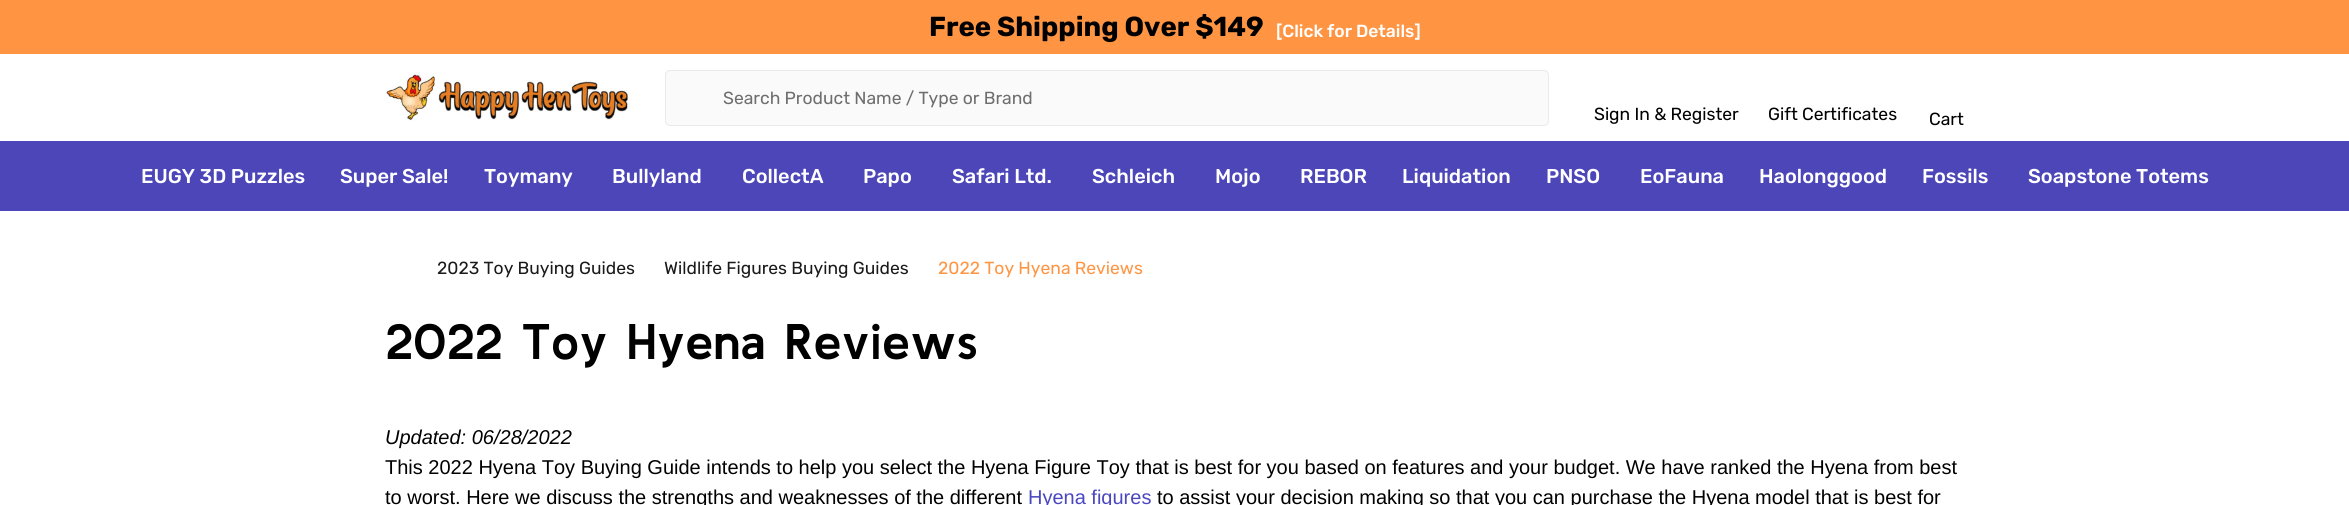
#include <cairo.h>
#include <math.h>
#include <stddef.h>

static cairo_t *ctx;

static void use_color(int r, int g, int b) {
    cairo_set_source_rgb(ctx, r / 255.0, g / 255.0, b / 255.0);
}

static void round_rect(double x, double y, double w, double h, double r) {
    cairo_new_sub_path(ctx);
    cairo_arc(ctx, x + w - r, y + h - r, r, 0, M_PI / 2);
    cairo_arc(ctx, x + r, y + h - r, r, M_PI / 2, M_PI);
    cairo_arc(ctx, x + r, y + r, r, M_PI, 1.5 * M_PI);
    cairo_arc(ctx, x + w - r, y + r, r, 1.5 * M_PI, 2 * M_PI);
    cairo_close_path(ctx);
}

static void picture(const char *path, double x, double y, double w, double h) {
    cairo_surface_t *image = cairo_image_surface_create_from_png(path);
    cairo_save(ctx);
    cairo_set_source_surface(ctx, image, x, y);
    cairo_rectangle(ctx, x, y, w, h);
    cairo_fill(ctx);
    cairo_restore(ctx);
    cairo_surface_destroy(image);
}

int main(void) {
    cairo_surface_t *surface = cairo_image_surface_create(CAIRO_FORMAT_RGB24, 2349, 505);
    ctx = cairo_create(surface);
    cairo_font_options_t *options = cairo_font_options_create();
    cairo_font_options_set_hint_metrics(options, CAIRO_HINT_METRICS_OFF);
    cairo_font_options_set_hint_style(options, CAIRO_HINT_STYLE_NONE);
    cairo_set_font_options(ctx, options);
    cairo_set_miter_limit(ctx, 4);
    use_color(255, 255, 255);
    cairo_paint(ctx);
    use_color(255, 149, 67);
    cairo_rectangle(ctx, 0, 0, 2349, 54);
    cairo_fill(ctx);
    cairo_select_font_face(ctx, "Rubik", CAIRO_FONT_SLANT_NORMAL, CAIRO_FONT_WEIGHT_BOLD);
    cairo_set_font_size(ctx, 27.5);
    use_color(0, 0, 0);
    cairo_move_to(ctx, 929, 36);
    cairo_show_text(ctx, "Free Shipping Over $149");
    cairo_select_font_face(ctx, "Rubik Medium", CAIRO_FONT_SLANT_NORMAL, CAIRO_FONT_WEIGHT_NORMAL);
    cairo_set_font_size(ctx, 17.5);
    use_color(255, 255, 255);
    cairo_move_to(ctx, 1276, 37);
    cairo_show_text(ctx, "[Click for Details]");
    picture("img1.png", 385, 72, 245, 49);
    use_color(250, 250, 250);
    round_rect(665.5, 70.5, 883, 55, 4.5);
    cairo_fill_preserve(ctx);
    use_color(234, 234, 234);
    cairo_set_line_width(ctx, 1);
    cairo_stroke(ctx);
    cairo_select_font_face(ctx, "Rubik", CAIRO_FONT_SLANT_NORMAL, CAIRO_FONT_WEIGHT_NORMAL);
    use_color(110, 110, 110);
    cairo_move_to(ctx, 723, 104);
    cairo_show_text(ctx, "Search Product Name / Type or Brand");
    use_color(0, 0, 0);
    cairo_move_to(ctx, 1594, 120);
    cairo_show_text(ctx, "Sign In & Register");
    cairo_move_to(ctx, 1768, 120);
    cairo_show_text(ctx, "Gift Certificates");
    cairo_move_to(ctx, 1929, 125);
    cairo_show_text(ctx, "Cart");
    use_color(76, 70, 185);
    cairo_rectangle(ctx, 0, 141, 2349, 70);
    cairo_fill(ctx);
    cairo_select_font_face(ctx, "Rubik Medium", CAIRO_FONT_SLANT_NORMAL, CAIRO_FONT_WEIGHT_NORMAL);
    cairo_set_font_size(ctx, 20);
    use_color(255, 255, 255);
    cairo_move_to(ctx, 141, 183);
    cairo_show_text(ctx, "EUGY 3D Puzzles");
    cairo_move_to(ctx, 340, 183);
    cairo_show_text(ctx, "Super Sale!");
    cairo_move_to(ctx, 484, 183);
    cairo_show_text(ctx, "Toymany");
    cairo_move_to(ctx, 612, 183);
    cairo_show_text(ctx, "Bullyland");
    cairo_move_to(ctx, 742, 183);
    cairo_show_text(ctx, "CollectA");
    cairo_move_to(ctx, 863, 183);
    cairo_show_text(ctx, "Papo");
    cairo_move_to(ctx, 952, 183);
    cairo_show_text(ctx, "Safari Ltd.");
    cairo_move_to(ctx, 1092, 183);
    cairo_show_text(ctx, "Schleich");
    cairo_move_to(ctx, 1215, 183);
    cairo_show_text(ctx, "Mojo");
    cairo_move_to(ctx, 1300, 183);
    cairo_show_text(ctx, "REBOR");
    cairo_move_to(ctx, 1402, 183);
    cairo_show_text(ctx, "Liquidation");
    cairo_move_to(ctx, 1546, 183);
    cairo_show_text(ctx, "PNSO");
    cairo_move_to(ctx, 1640, 183);
    cairo_show_text(ctx, "EoFauna");
    cairo_move_to(ctx, 1759, 183);
    cairo_show_text(ctx, "Haolonggood");
    cairo_move_to(ctx, 1922, 183);
    cairo_show_text(ctx, "Fossils");
    cairo_move_to(ctx, 2028, 183);
    cairo_show_text(ctx, "Soapstone Totems");
    cairo_select_font_face(ctx, "Rubik", CAIRO_FONT_SLANT_NORMAL, CAIRO_FONT_WEIGHT_NORMAL);
    cairo_set_font_size(ctx, 17.5);
    use_color(26, 26, 26);
    cairo_move_to(ctx, 437, 274);
    cairo_show_text(ctx, "2023 Toy Buying Guides");
    cairo_move_to(ctx, 664, 274);
    cairo_show_text(ctx, "Wildlife Figures Buying Guides");
    use_color(255, 149, 67);
    cairo_move_to(ctx, 938, 274);
    cairo_show_text(ctx, "2022 Toy Hyena Reviews");
    cairo_select_font_face(ctx, "Kulim Park", CAIRO_FONT_SLANT_NORMAL, CAIRO_FONT_WEIGHT_BOLD);
    cairo_set_font_size(ctx, 50);
    use_color(0, 0, 0);
    cairo_move_to(ctx, 385, 359);
    cairo_show_text(ctx, "2022 Toy Hyena Reviews");
    cairo_select_font_face(ctx, "Liberation Sans", CAIRO_FONT_SLANT_ITALIC, CAIRO_FONT_WEIGHT_NORMAL);
    cairo_set_font_size(ctx, 20);
    cairo_move_to(ctx, 385, 444);
    cairo_show_text(ctx, "Updated: 06/28/2022");
    cairo_select_font_face(ctx, "Liberation Sans", CAIRO_FONT_SLANT_NORMAL, CAIRO_FONT_WEIGHT_NORMAL);
    cairo_move_to(ctx, 385, 474);
    cairo_show_text(ctx, "This 2022 Hyena Toy Buying Guide intends to help you select the Hyena Figure Toy that is best for you based on features and your budget. We have ranked the Hyena from best");
    cairo_move_to(ctx, 385, 504);
    cairo_show_text(ctx, "to worst. Here we discuss the strengths and weaknesses of the different");
    use_color(75, 71, 191);
    cairo_move_to(ctx, 1028, 504);
    cairo_show_text(ctx, "Hyena figures");
    use_color(0, 0, 0);
    cairo_move_to(ctx, 1157, 504);
    cairo_show_text(ctx, "to assist your decision making so that you can purchase the Hyena model that is best for");
    cairo_surface_write_to_png(surface, "result.png");
    cairo_font_options_destroy(options);
    cairo_destroy(ctx);
    cairo_surface_destroy(surface);
    return 0;
}
